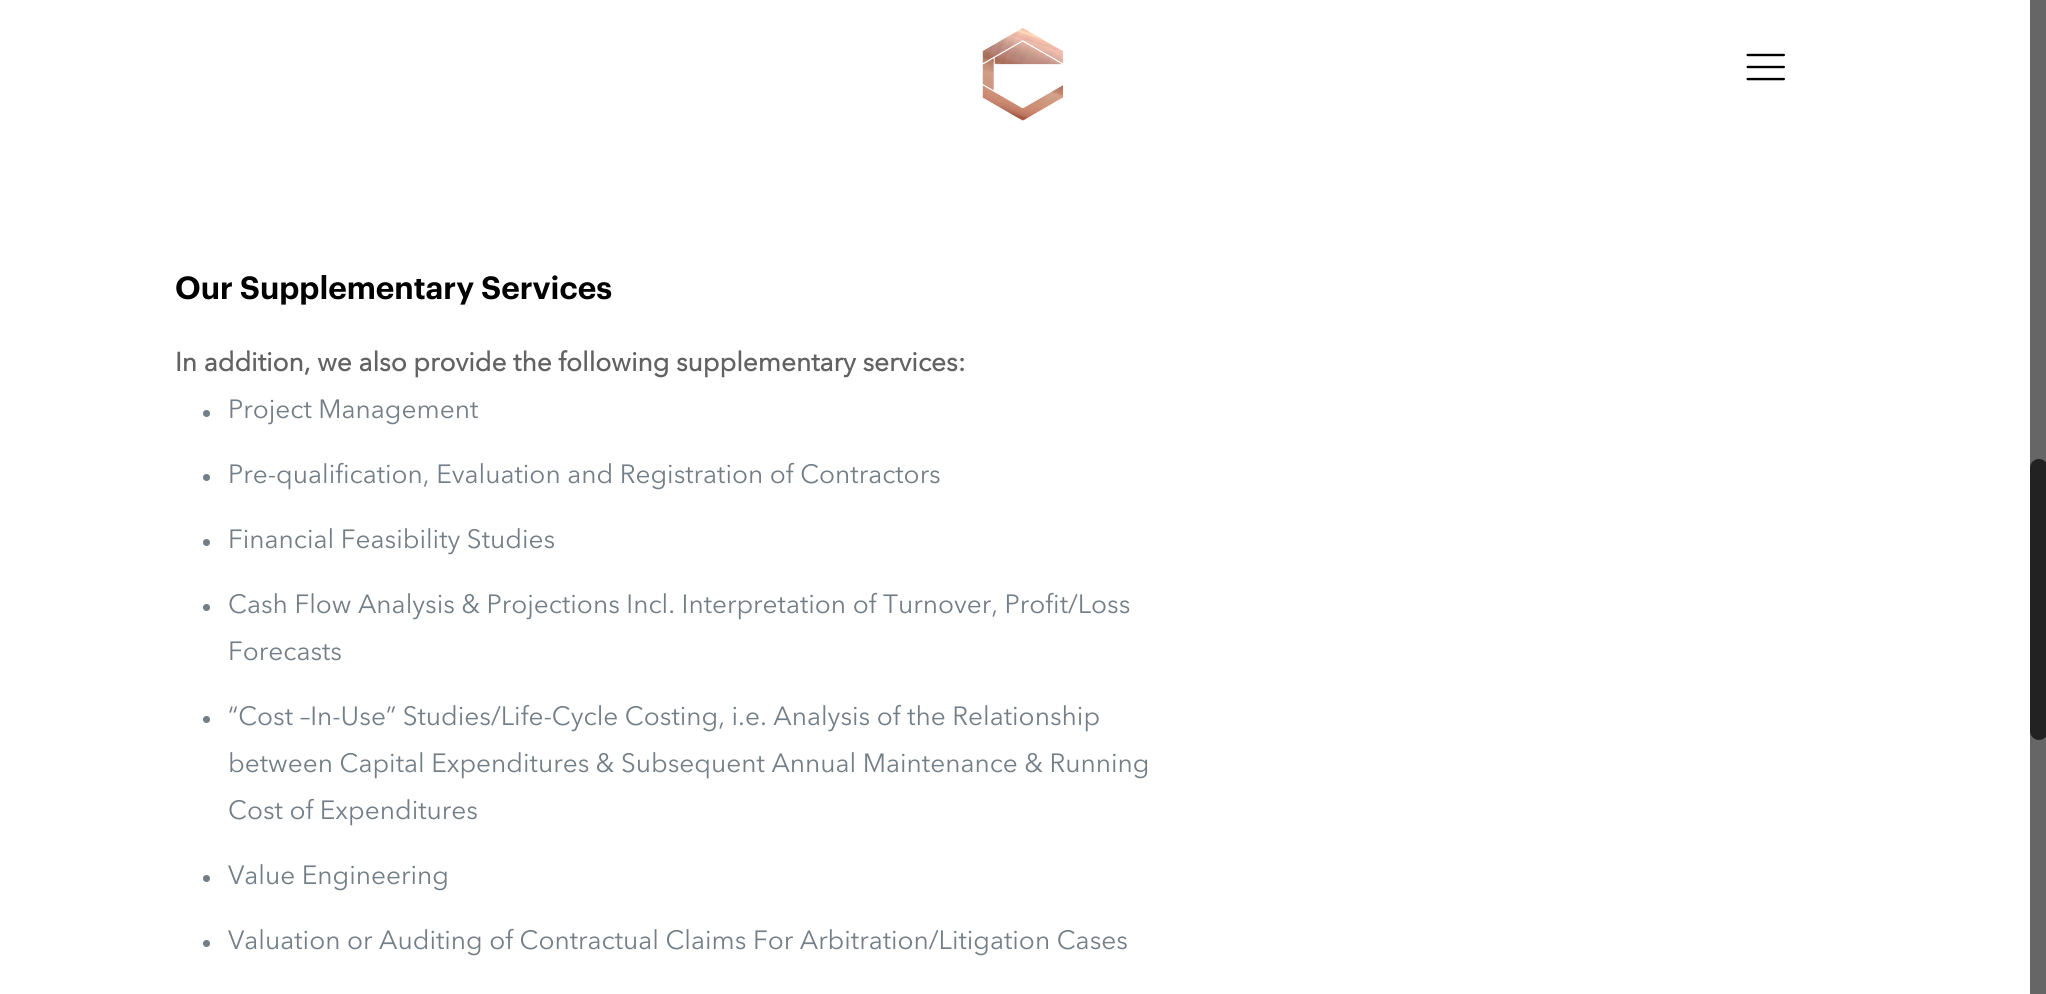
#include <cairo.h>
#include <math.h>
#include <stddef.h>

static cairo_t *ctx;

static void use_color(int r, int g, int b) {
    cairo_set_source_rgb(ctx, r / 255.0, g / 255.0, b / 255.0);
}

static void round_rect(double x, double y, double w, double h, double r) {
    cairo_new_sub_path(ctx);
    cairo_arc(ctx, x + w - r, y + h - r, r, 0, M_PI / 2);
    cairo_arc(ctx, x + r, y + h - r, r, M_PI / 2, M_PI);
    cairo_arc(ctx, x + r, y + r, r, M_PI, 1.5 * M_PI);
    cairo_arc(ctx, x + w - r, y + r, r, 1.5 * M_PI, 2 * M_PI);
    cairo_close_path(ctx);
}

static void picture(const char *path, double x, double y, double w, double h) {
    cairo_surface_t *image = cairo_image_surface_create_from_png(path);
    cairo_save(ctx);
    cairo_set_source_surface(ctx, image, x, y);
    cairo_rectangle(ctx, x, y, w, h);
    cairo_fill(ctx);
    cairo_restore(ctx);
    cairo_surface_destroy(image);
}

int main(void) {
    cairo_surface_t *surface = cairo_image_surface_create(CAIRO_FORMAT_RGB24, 2046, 994);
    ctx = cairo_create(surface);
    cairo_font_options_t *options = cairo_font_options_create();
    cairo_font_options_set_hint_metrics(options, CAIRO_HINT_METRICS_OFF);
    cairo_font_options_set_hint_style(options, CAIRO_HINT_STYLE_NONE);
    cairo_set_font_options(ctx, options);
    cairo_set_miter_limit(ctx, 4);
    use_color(255, 255, 255);
    cairo_paint(ctx);
    picture("img1.png", 982, 28, 82, 93);
    picture("img2.png", 1746, 53, 39, 28);
    cairo_select_font_face(ctx, "Graphik SemiBold", CAIRO_FONT_SLANT_NORMAL, CAIRO_FONT_WEIGHT_NORMAL);
    cairo_set_font_size(ctx, 31.5);
    use_color(0, 0, 0);
    cairo_move_to(ctx, 175, 299);
    cairo_show_text(ctx, "Our Supplementary Services");
    cairo_select_font_face(ctx, "Avenir Next", CAIRO_FONT_SLANT_NORMAL, CAIRO_FONT_WEIGHT_BOLD);
    cairo_set_font_size(ctx, 26.25);
    use_color(98, 98, 98);
    cairo_move_to(ctx, 175, 371);
    cairo_show_text(ctx, "In addition, we also provide the following supplementary services:");
    use_color(115, 126, 134);
    cairo_new_path(ctx);
    cairo_arc(ctx, 206.5, 413.5, 3.5, 0, 2 * M_PI);
    cairo_fill(ctx);
    cairo_select_font_face(ctx, "Avenir Next", CAIRO_FONT_SLANT_NORMAL, CAIRO_FONT_WEIGHT_NORMAL);
    cairo_move_to(ctx, 228, 418);
    cairo_show_text(ctx, "Project Management");
    cairo_new_path(ctx);
    cairo_arc(ctx, 206.5, 477.5, 3.5, 0, 2 * M_PI);
    cairo_fill(ctx);
    cairo_move_to(ctx, 228, 483);
    cairo_show_text(ctx, "Pre-qualification, Evaluation and Registration of Contractors");
    cairo_new_path(ctx);
    cairo_arc(ctx, 206.5, 542.5, 3.5, 0, 2 * M_PI);
    cairo_fill(ctx);
    cairo_move_to(ctx, 228, 548);
    cairo_show_text(ctx, "Financial Feasibility Studies");
    cairo_new_path(ctx);
    cairo_arc(ctx, 206.5, 607.5, 3.5, 0, 2 * M_PI);
    cairo_fill(ctx);
    cairo_move_to(ctx, 228, 613);
    cairo_show_text(ctx, "Cash Flow Analysis & Projections Incl. Interpretation of Turnover, Profit/Loss");
    cairo_move_to(ctx, 228, 660);
    cairo_show_text(ctx, "Forecasts");
    cairo_new_path(ctx);
    cairo_arc(ctx, 206.5, 719.5, 3.5, 0, 2 * M_PI);
    cairo_fill(ctx);
    cairo_move_to(ctx, 228, 725);
    cairo_show_text(ctx, "“Cost –In-Use” Studies/Life-Cycle Costing, i.e. Analysis of the Relationship");
    cairo_move_to(ctx, 228, 772);
    cairo_show_text(ctx, "between Capital Expenditures & Subsequent Annual Maintenance & Running");
    cairo_move_to(ctx, 228, 819);
    cairo_show_text(ctx, "Cost of Expenditures");
    cairo_new_path(ctx);
    cairo_arc(ctx, 206.5, 878.5, 3.5, 0, 2 * M_PI);
    cairo_fill(ctx);
    cairo_move_to(ctx, 228, 884);
    cairo_show_text(ctx, "Value Engineering");
    cairo_new_path(ctx);
    cairo_arc(ctx, 206.5, 943.5, 3.5, 0, 2 * M_PI);
    cairo_fill(ctx);
    cairo_move_to(ctx, 228, 949);
    cairo_show_text(ctx, "Valuation or Auditing of Contractual Claims For Arbitration/Litigation Cases");
    use_color(102, 102, 102);
    cairo_rectangle(ctx, 2030, 0, 16, 994);
    cairo_fill(ctx);
    use_color(34, 34, 34);
    round_rect(2030, 459, 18, 281, 9);
    cairo_fill(ctx);
    cairo_surface_write_to_png(surface, "result.png");
    cairo_font_options_destroy(options);
    cairo_destroy(ctx);
    cairo_surface_destroy(surface);
    return 0;
}
